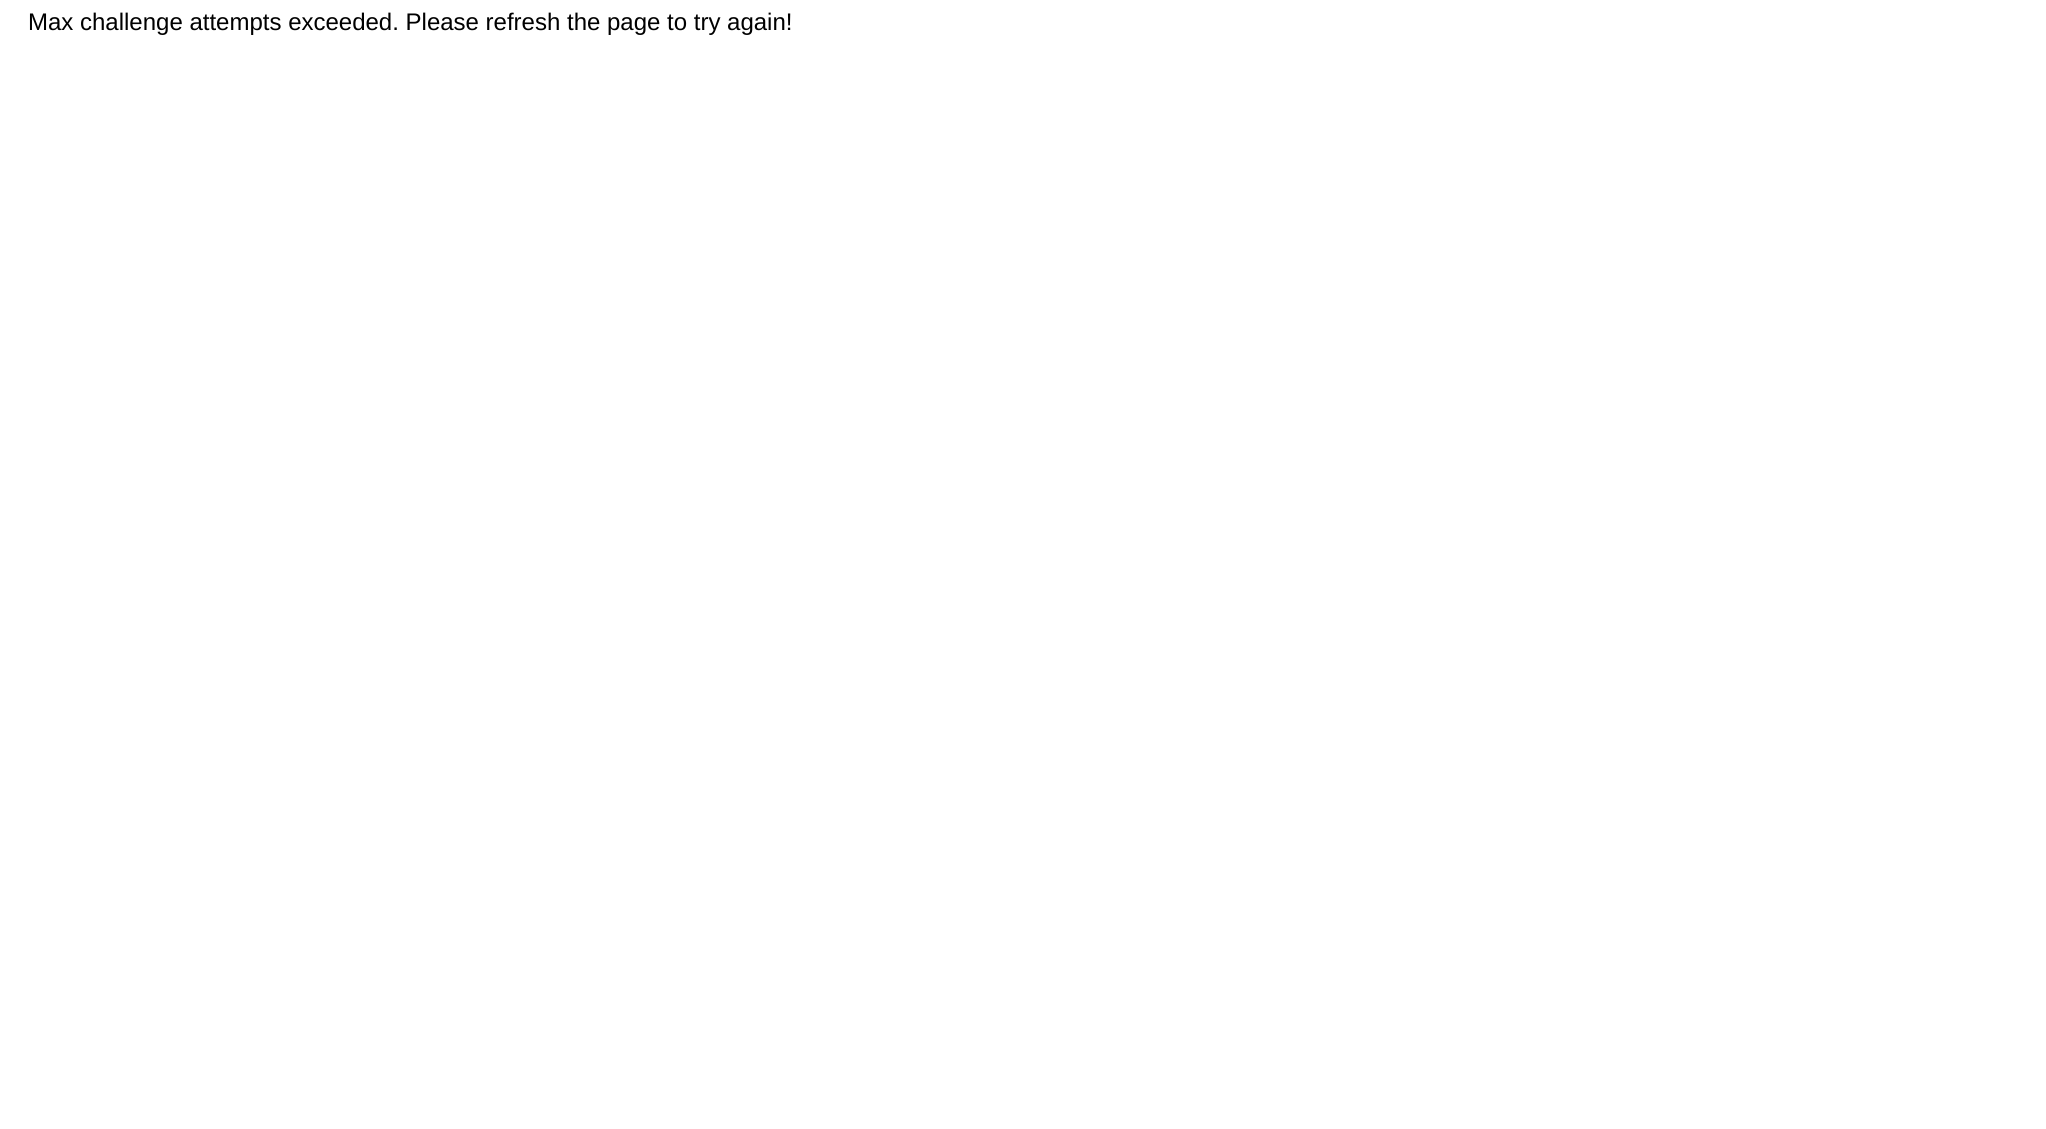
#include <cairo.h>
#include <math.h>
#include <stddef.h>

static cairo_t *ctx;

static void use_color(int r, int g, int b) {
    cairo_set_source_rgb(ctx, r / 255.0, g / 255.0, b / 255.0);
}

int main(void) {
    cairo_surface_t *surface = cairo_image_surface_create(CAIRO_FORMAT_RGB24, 2046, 1129);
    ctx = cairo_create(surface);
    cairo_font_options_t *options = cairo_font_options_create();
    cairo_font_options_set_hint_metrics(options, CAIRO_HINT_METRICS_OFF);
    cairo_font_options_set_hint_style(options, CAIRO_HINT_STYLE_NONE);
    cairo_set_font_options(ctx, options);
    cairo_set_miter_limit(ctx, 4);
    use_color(255, 255, 255);
    cairo_paint(ctx);
    cairo_select_font_face(ctx, "Liberation Sans", CAIRO_FONT_SLANT_NORMAL, CAIRO_FONT_WEIGHT_NORMAL);
    cairo_set_font_size(ctx, 24);
    use_color(0, 0, 0);
    cairo_move_to(ctx, 28, 30);
    cairo_show_text(ctx, "Max challenge attempts exceeded. Please refresh the page to try again!");
    cairo_surface_write_to_png(surface, "result.png");
    cairo_font_options_destroy(options);
    cairo_destroy(ctx);
    cairo_surface_destroy(surface);
    return 0;
}
